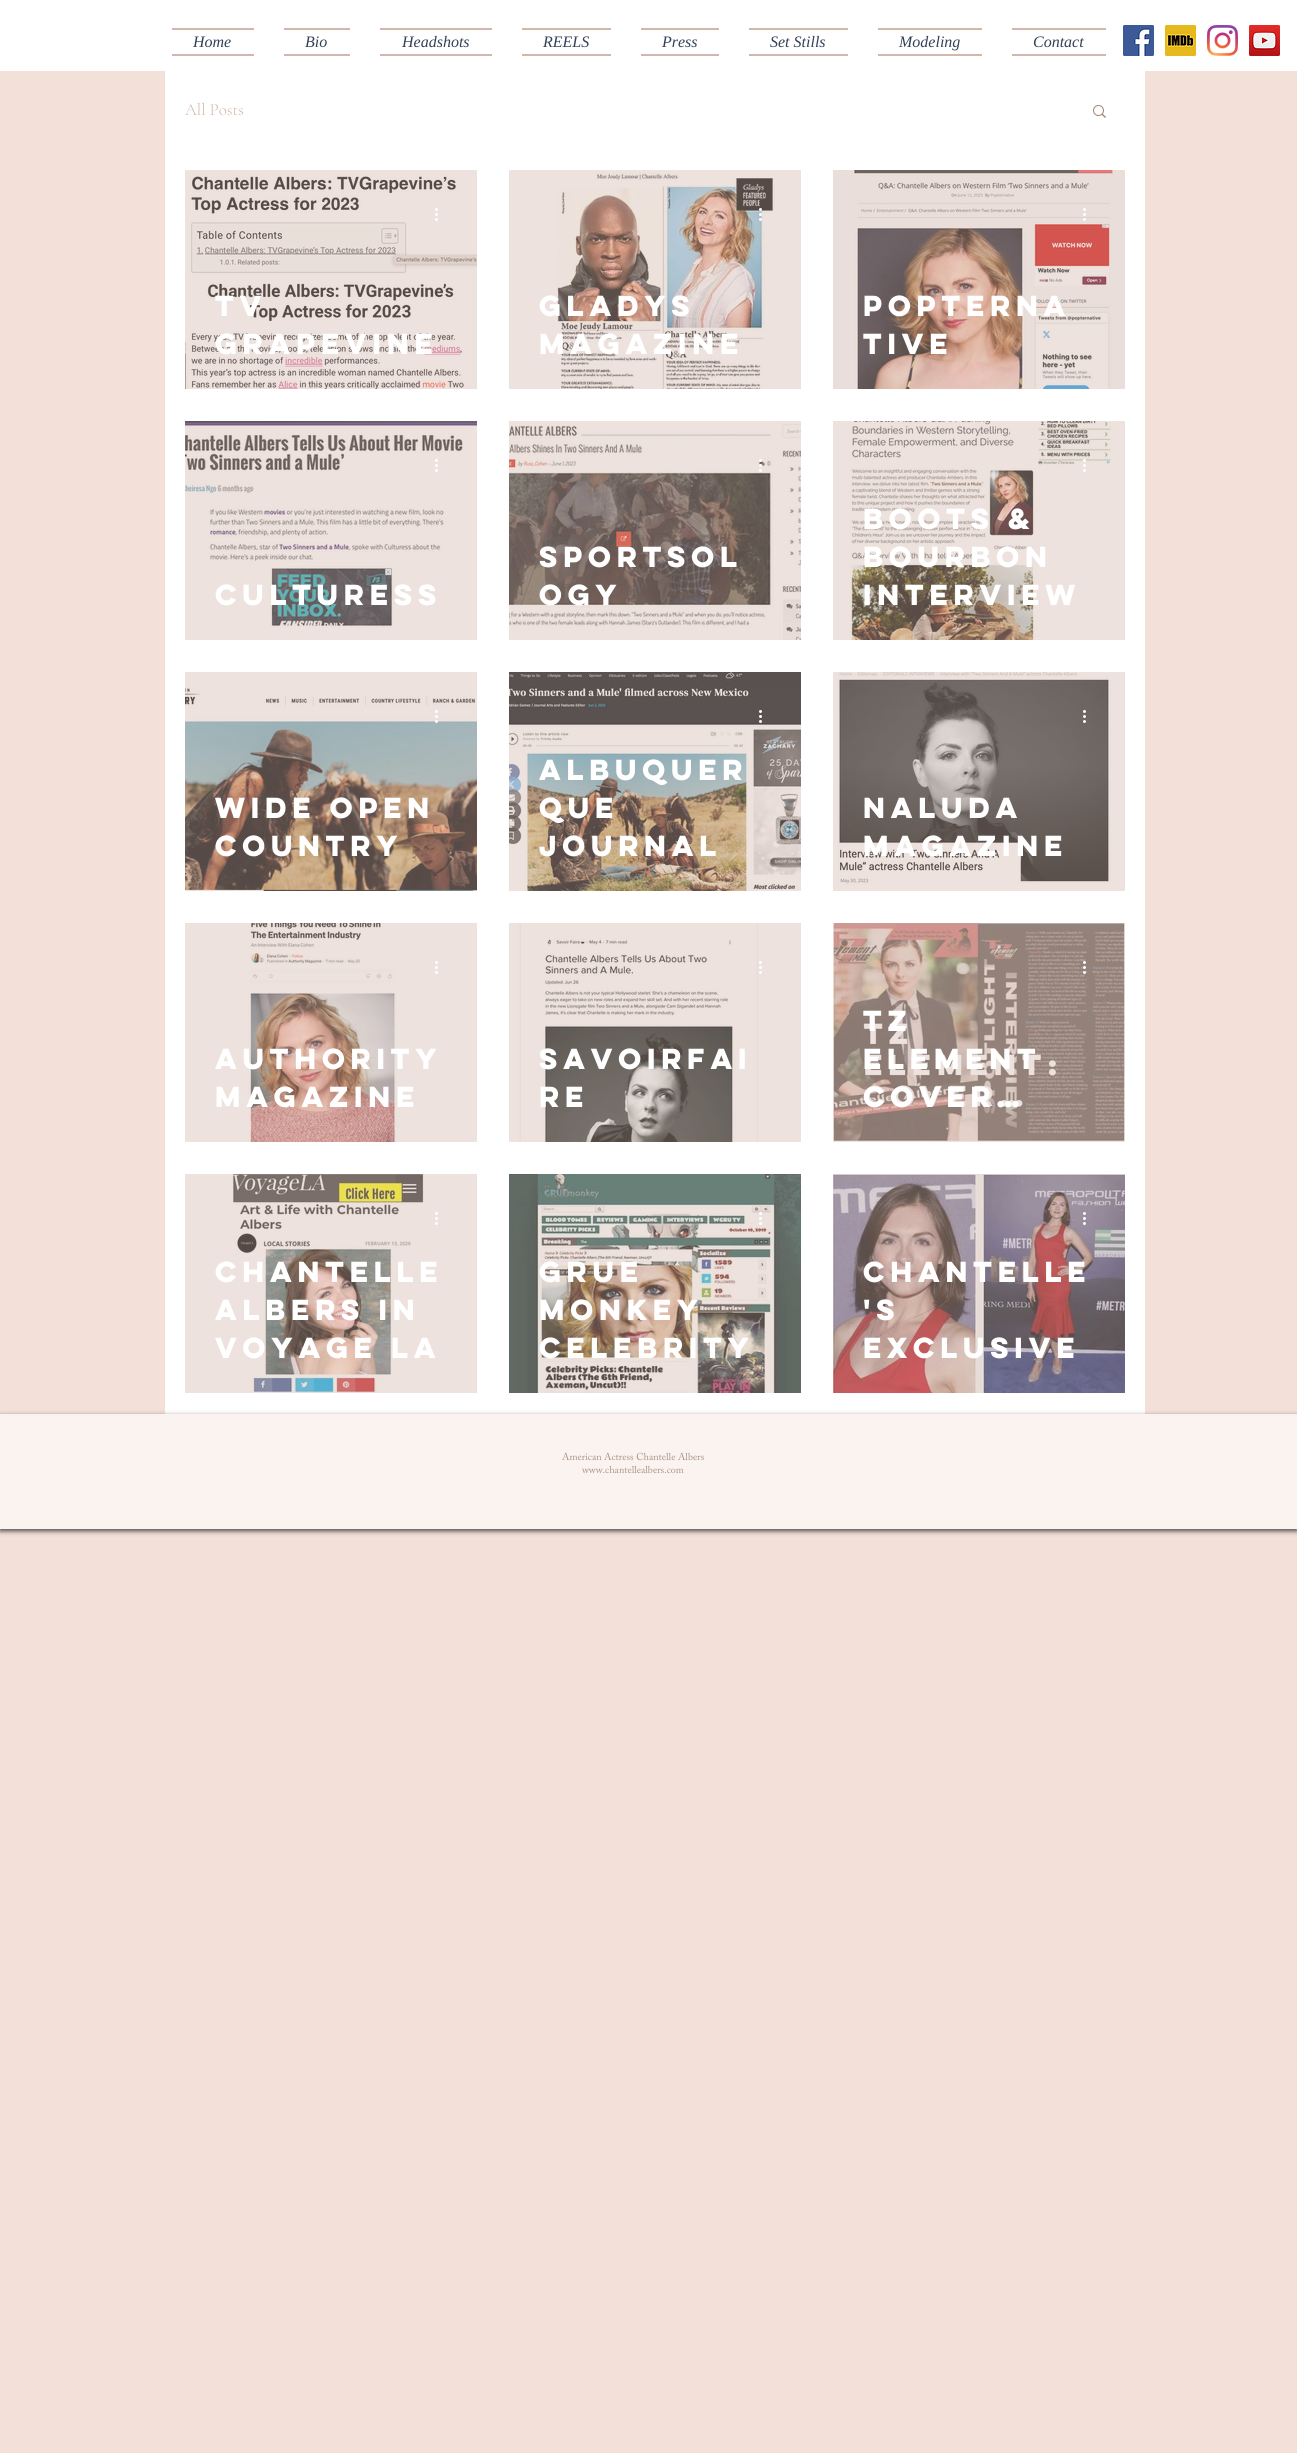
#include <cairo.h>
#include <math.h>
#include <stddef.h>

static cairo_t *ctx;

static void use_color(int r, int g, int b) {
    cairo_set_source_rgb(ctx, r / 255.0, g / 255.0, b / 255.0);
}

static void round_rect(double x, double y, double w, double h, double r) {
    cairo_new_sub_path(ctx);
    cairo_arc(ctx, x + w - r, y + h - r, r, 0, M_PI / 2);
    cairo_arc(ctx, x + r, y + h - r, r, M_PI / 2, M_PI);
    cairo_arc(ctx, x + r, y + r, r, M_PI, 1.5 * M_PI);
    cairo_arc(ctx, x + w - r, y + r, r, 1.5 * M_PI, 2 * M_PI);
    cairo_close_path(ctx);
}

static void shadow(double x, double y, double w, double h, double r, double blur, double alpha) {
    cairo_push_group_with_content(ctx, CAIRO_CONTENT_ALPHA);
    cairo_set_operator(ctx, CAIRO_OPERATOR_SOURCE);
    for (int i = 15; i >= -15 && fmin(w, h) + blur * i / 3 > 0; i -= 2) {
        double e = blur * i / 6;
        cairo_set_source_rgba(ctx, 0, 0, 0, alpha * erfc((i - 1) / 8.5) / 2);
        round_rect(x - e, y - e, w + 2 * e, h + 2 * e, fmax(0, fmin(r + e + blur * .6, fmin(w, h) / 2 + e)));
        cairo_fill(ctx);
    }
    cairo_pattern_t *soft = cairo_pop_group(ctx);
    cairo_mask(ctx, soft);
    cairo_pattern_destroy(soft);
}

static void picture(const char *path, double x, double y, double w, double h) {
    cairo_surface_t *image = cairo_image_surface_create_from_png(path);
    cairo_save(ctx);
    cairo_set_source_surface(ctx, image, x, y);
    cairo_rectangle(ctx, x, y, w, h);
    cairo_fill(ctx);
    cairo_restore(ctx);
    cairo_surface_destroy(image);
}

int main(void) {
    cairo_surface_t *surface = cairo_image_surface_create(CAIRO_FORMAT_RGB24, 1297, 2453);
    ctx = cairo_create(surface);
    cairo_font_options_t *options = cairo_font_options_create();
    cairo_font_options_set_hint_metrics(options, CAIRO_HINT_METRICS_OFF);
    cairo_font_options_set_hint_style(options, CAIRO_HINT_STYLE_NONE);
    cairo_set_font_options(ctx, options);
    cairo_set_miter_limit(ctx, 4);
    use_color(243, 225, 217);
    cairo_paint(ctx);
    use_color(255, 255, 255);
    cairo_rectangle(ctx, 0, 0, 1297, 71);
    cairo_fill(ctx);
    use_color(210, 183, 170);
    cairo_rectangle(ctx, 172, 28, 82, 2);
    cairo_fill(ctx);
    cairo_rectangle(ctx, 172, 54, 82, 2);
    cairo_fill(ctx);
    cairo_select_font_face(ctx, "Liberation Serif", CAIRO_FONT_SLANT_ITALIC, CAIRO_FONT_WEIGHT_NORMAL);
    cairo_set_font_size(ctx, 16);
    use_color(50, 65, 88);
    cairo_move_to(ctx, 193, 47);
    cairo_show_text(ctx, "Home");
    use_color(210, 183, 170);
    cairo_rectangle(ctx, 284, 28, 66, 2);
    cairo_fill(ctx);
    cairo_rectangle(ctx, 284, 54, 66, 2);
    cairo_fill(ctx);
    use_color(50, 65, 88);
    cairo_move_to(ctx, 305, 47);
    cairo_show_text(ctx, "Bio");
    use_color(210, 183, 170);
    cairo_rectangle(ctx, 380, 28, 112, 2);
    cairo_fill(ctx);
    cairo_rectangle(ctx, 380, 54, 112, 2);
    cairo_fill(ctx);
    use_color(50, 65, 88);
    cairo_move_to(ctx, 402, 47);
    cairo_show_text(ctx, "Headshots");
    use_color(210, 183, 170);
    cairo_rectangle(ctx, 522, 28, 89, 2);
    cairo_fill(ctx);
    cairo_rectangle(ctx, 522, 54, 89, 2);
    cairo_fill(ctx);
    use_color(50, 65, 88);
    cairo_move_to(ctx, 543, 47);
    cairo_show_text(ctx, "REELS");
    use_color(210, 183, 170);
    cairo_rectangle(ctx, 641, 28, 78, 2);
    cairo_fill(ctx);
    cairo_rectangle(ctx, 641, 54, 78, 2);
    cairo_fill(ctx);
    use_color(50, 65, 88);
    cairo_move_to(ctx, 662, 47);
    cairo_show_text(ctx, "Press");
    use_color(210, 183, 170);
    cairo_rectangle(ctx, 749, 28, 99, 2);
    cairo_fill(ctx);
    cairo_rectangle(ctx, 749, 54, 99, 2);
    cairo_fill(ctx);
    use_color(50, 65, 88);
    cairo_move_to(ctx, 770, 47);
    cairo_show_text(ctx, "Set Stills");
    use_color(210, 183, 170);
    cairo_rectangle(ctx, 878, 28, 104, 2);
    cairo_fill(ctx);
    cairo_rectangle(ctx, 878, 54, 104, 2);
    cairo_fill(ctx);
    use_color(50, 65, 88);
    cairo_move_to(ctx, 899, 47);
    cairo_show_text(ctx, "Modeling");
    use_color(210, 183, 170);
    cairo_rectangle(ctx, 1012, 28, 94, 2);
    cairo_fill(ctx);
    cairo_rectangle(ctx, 1012, 54, 94, 2);
    cairo_fill(ctx);
    use_color(50, 65, 88);
    cairo_move_to(ctx, 1033, 47);
    cairo_show_text(ctx, "Contact");
    picture("img1.png", 1123, 25, 31, 31);
    picture("img2.png", 1165, 25, 31, 31);
    picture("img3.png", 1207, 25, 31, 31);
    picture("img4.png", 1249, 25, 31, 31);
    use_color(255, 255, 255);
    cairo_rectangle(ctx, 165, 71, 980, 1343);
    cairo_fill(ctx);
    use_color(237, 226, 221);
    cairo_rectangle(ctx, 185, 1174, 292, 219);
    cairo_fill(ctx);
    cairo_rectangle(ctx, 775, 923, 26, 219);
    cairo_fill(ctx);
    cairo_rectangle(ctx, 185, 923, 292, 219);
    cairo_fill(ctx);
    cairo_rectangle(ctx, 509, 170, 13, 219);
    cairo_fill(ctx);
    cairo_select_font_face(ctx, "Cormorant Garamond Light", CAIRO_FONT_SLANT_NORMAL, CAIRO_FONT_WEIGHT_NORMAL);
    cairo_set_font_size(ctx, 17);
    use_color(210, 183, 170);
    cairo_move_to(ctx, 185, 115);
    cairo_show_text(ctx, "All Posts");
    picture("img5.png", 1093, 105, 13, 13);
    picture("img6.png", 185, 170, 292, 219);
    picture("img7.png", 435, 208, 3, 13);
    cairo_save(ctx);
    cairo_rectangle(ctx, 215, 286, 232, 76);
    cairo_clip(ctx);
    cairo_select_font_face(ctx, "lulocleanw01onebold", CAIRO_FONT_SLANT_NORMAL, CAIRO_FONT_WEIGHT_BOLD);
    cairo_set_font_size(ctx, 26);
    use_color(255, 255, 255);
    cairo_move_to(ctx, 215, 316);
    cairo_show_text(ctx, "TV");
    cairo_restore(ctx);
    cairo_select_font_face(ctx, "lulocleanw01onebold", CAIRO_FONT_SLANT_NORMAL, CAIRO_FONT_WEIGHT_BOLD);
    cairo_set_font_size(ctx, 26);
    use_color(255, 255, 255);
    cairo_move_to(ctx, 215, 354);
    cairo_show_text(ctx, "Grapevine");
    picture("img8.png", 522, 170, 279, 219);
    picture("img9.png", 759, 208, 3, 13);
    cairo_move_to(ctx, 539, 316);
    cairo_show_text(ctx, "Gladys");
    cairo_move_to(ctx, 539, 354);
    cairo_show_text(ctx, "Magazine");
    picture("img10.png", 833, 170, 292, 219);
    picture("img11.png", 1083, 208, 3, 13);
    cairo_move_to(ctx, 863, 316);
    cairo_show_text(ctx, "Popterna");
    cairo_save(ctx);
    cairo_rectangle(ctx, 863, 286, 232, 76);
    cairo_clip(ctx);
    cairo_move_to(ctx, 863, 354);
    cairo_show_text(ctx, "tive");
    cairo_restore(ctx);
    picture("img12.png", 185, 421, 292, 219);
    picture("img7.png", 435, 459, 3, 13);
    cairo_move_to(ctx, 215, 605);
    cairo_show_text(ctx, "Culturess");
    picture("img13.png", 509, 421, 292, 219);
    picture("img14.png", 759, 459, 3, 13);
    cairo_move_to(ctx, 539, 567);
    cairo_show_text(ctx, "Sportsol");
    cairo_move_to(ctx, 539, 605);
    cairo_show_text(ctx, "ogy");
    picture("img15.png", 833, 421, 292, 219);
    picture("img16.png", 1083, 459, 3, 13);
    cairo_move_to(ctx, 863, 529);
    cairo_show_text(ctx, "Boots &");
    cairo_move_to(ctx, 863, 567);
    cairo_show_text(ctx, "Bourbon");
    cairo_move_to(ctx, 863, 605);
    cairo_show_text(ctx, "Interview");
    picture("img17.png", 185, 672, 292, 219);
    picture("img18.png", 435, 710, 3, 13);
    cairo_move_to(ctx, 215, 818);
    cairo_show_text(ctx, "Wide Open");
    cairo_move_to(ctx, 215, 856);
    cairo_show_text(ctx, "Country");
    picture("img19.png", 509, 672, 292, 219);
    picture("img20.png", 759, 710, 3, 13);
    cairo_move_to(ctx, 539, 780);
    cairo_show_text(ctx, "Albuquer");
    cairo_move_to(ctx, 539, 818);
    cairo_show_text(ctx, "que");
    cairo_move_to(ctx, 539, 856);
    cairo_show_text(ctx, "Journal");
    picture("img21.png", 833, 672, 292, 219);
    picture("img22.png", 1083, 710, 3, 13);
    cairo_move_to(ctx, 863, 818);
    cairo_show_text(ctx, "Naluda");
    cairo_move_to(ctx, 863, 856);
    cairo_show_text(ctx, "Magazine");
    picture("img23.png", 211, 923, 223, 219);
    picture("img7.png", 435, 961, 3, 13);
    cairo_move_to(ctx, 215, 1069);
    cairo_show_text(ctx, "Authority");
    cairo_move_to(ctx, 215, 1107);
    cairo_show_text(ctx, "Magazine");
    picture("img24.png", 509, 923, 266, 219);
    picture("img25.png", 759, 961, 3, 13);
    cairo_move_to(ctx, 539, 1069);
    cairo_show_text(ctx, "SavoirFai");
    cairo_move_to(ctx, 539, 1107);
    cairo_show_text(ctx, "re");
    picture("img26.png", 833, 923, 292, 219);
    picture("img27.png", 1083, 961, 3, 13);
    cairo_save(ctx);
    cairo_rectangle(ctx, 863, 1001, 232, 114);
    cairo_clip(ctx);
    cairo_move_to(ctx, 863, 1031);
    cairo_show_text(ctx, "TZ");
    cairo_restore(ctx);
    cairo_move_to(ctx, 863, 1069);
    cairo_show_text(ctx, "Element");
    cairo_move_to(ctx, 863, 1107);
    cairo_show_text(ctx, "Cover…");
    picture("img28.png", 193, 1174, 271, 219);
    picture("img7.png", 435, 1212, 3, 13);
    cairo_move_to(ctx, 215, 1282);
    cairo_show_text(ctx, "Chantelle");
    cairo_move_to(ctx, 215, 1320);
    cairo_show_text(ctx, "Albers in");
    cairo_move_to(ctx, 215, 1358);
    cairo_show_text(ctx, "Voyage LA");
    picture("img29.png", 509, 1174, 292, 219);
    picture("img30.png", 759, 1212, 3, 13);
    cairo_move_to(ctx, 539, 1282);
    cairo_show_text(ctx, "GRUE");
    cairo_move_to(ctx, 539, 1320);
    cairo_show_text(ctx, "Monkey");
    cairo_move_to(ctx, 539, 1358);
    cairo_show_text(ctx, "Celebrity");
    picture("img31.png", 833, 1174, 292, 219);
    picture("img32.png", 1083, 1212, 3, 13);
    cairo_move_to(ctx, 863, 1282);
    cairo_show_text(ctx, "Chantelle");
    cairo_move_to(ctx, 863, 1320);
    cairo_show_text(ctx, "'s");
    cairo_move_to(ctx, 863, 1358);
    cairo_show_text(ctx, "Exclusive");
    use_color(0, 0, 0);
    shadow(0, 1416, 1297, 115, 0, 2.5, 0.7);
    use_color(250, 243, 240);
    cairo_rectangle(ctx, 0, 1414, 1297, 115);
    cairo_fill(ctx);
    cairo_select_font_face(ctx, "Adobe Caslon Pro", CAIRO_FONT_SLANT_NORMAL, CAIRO_FONT_WEIGHT_NORMAL);
    cairo_set_font_size(ctx, 10);
    use_color(171, 147, 135);
    cairo_move_to(ctx, 562, 1460);
    cairo_show_text(ctx, "American Actress Chantelle Albers");
    cairo_move_to(ctx, 582, 1473);
    cairo_show_text(ctx, "www.chantellealbers.com");
    cairo_surface_write_to_png(surface, "result.png");
    cairo_font_options_destroy(options);
    cairo_destroy(ctx);
    cairo_surface_destroy(surface);
    return 0;
}
